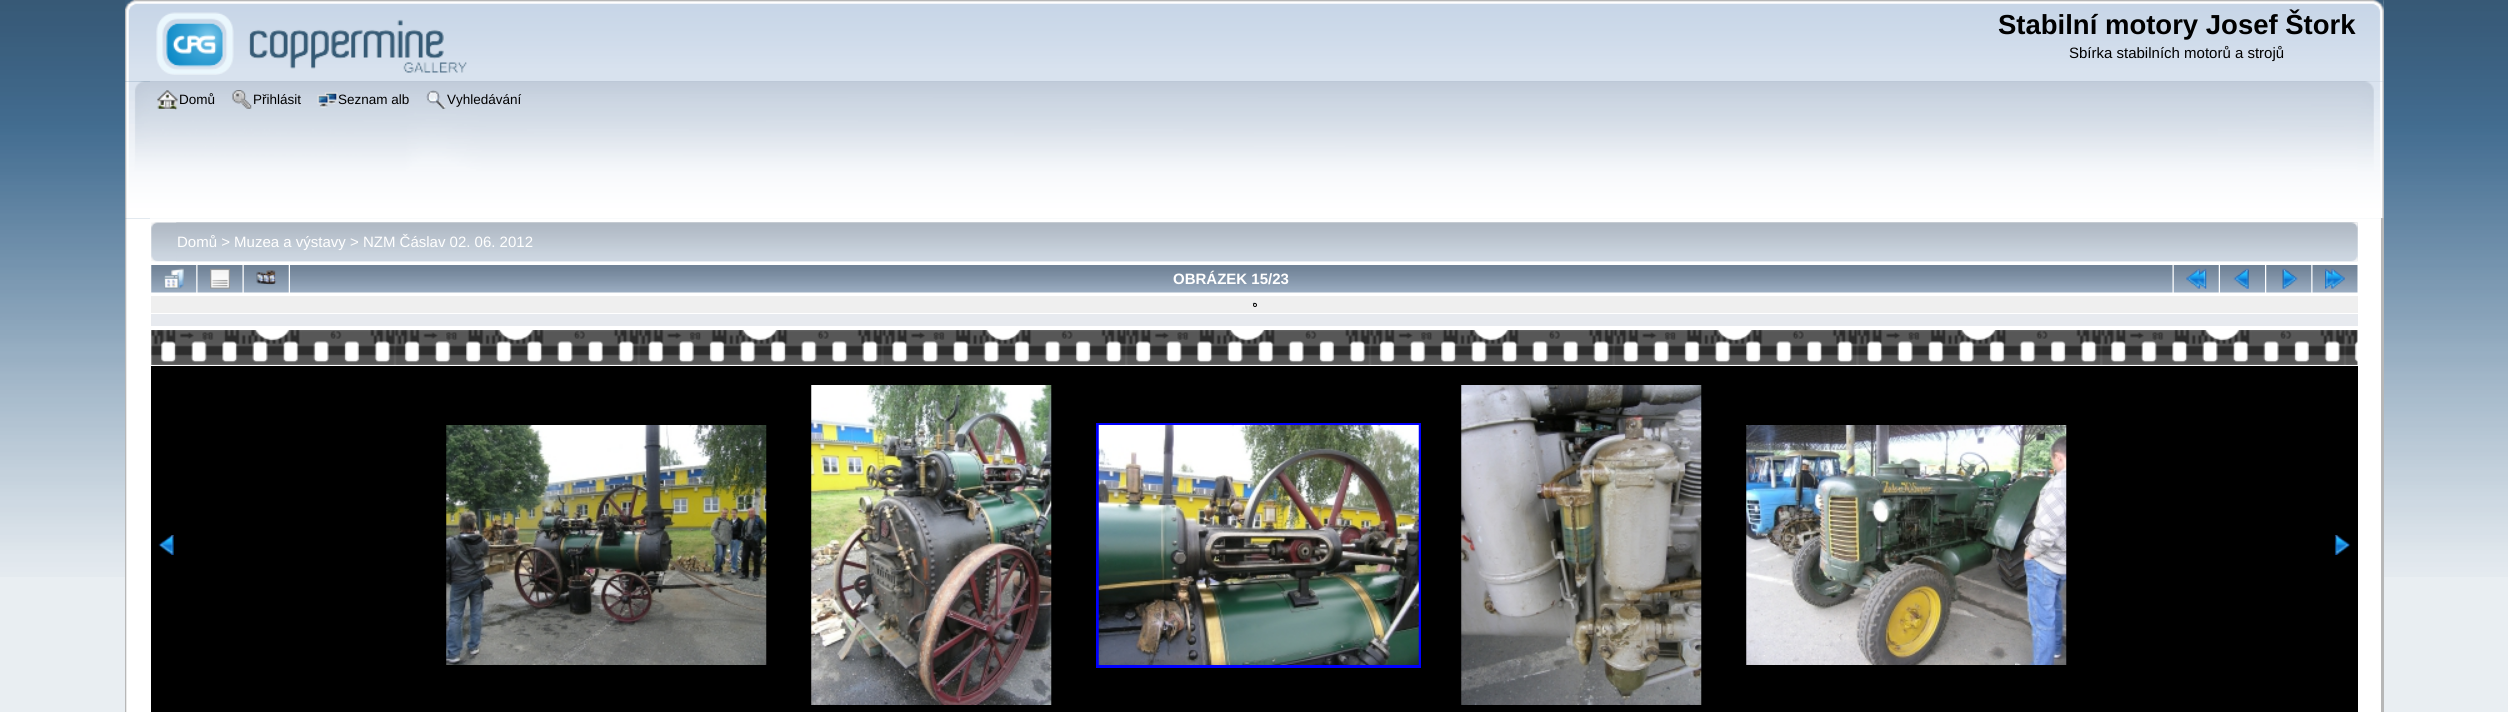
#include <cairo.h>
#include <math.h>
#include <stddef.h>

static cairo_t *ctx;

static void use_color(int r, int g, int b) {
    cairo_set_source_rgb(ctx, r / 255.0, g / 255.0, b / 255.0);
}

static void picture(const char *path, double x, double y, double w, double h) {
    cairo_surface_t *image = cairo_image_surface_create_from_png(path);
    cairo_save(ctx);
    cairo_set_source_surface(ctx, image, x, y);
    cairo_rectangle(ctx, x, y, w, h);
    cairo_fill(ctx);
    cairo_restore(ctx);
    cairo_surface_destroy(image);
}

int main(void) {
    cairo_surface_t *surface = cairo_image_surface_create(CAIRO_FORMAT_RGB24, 2508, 712);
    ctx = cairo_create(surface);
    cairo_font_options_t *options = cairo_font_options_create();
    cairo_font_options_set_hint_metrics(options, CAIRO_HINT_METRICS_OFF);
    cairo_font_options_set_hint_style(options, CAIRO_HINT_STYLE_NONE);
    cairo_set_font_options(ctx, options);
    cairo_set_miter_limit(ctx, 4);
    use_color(233, 238, 242);
    cairo_paint(ctx);
    picture("img1.png", 0, 0, 2508, 577);
    picture("img2.png", 125, 0, 2259, 82);
    picture("img3.png", 150, 0, 2234, 82);
    picture("img4.png", 156, 12, 311, 63);
    cairo_select_font_face(ctx, "Liberation Sans", CAIRO_FONT_SLANT_NORMAL, CAIRO_FONT_WEIGHT_BOLD);
    cairo_set_font_size(ctx, 27.5);
    use_color(0, 0, 0);
    cairo_move_to(ctx, 1998, 34);
    cairo_show_text(ctx, "Stabilní motory Josef Štork");
    cairo_select_font_face(ctx, "Liberation Sans", CAIRO_FONT_SLANT_NORMAL, CAIRO_FONT_WEIGHT_NORMAL);
    cairo_set_font_size(ctx, 15);
    cairo_move_to(ctx, 2069, 58);
    cairo_show_text(ctx, "Sbírka stabilních motorů a strojů");
    picture("img5.png", 125, 81, 2259, 138);
    picture("img6.png", 150, 81, 2234, 138);
    picture("img7.png", 157, 90, 21, 20);
    cairo_set_font_size(ctx, 13.5);
    cairo_move_to(ctx, 179, 104);
    cairo_show_text(ctx, "Domů");
    picture("img8.png", 232, 90, 20, 19);
    cairo_move_to(ctx, 253, 104);
    cairo_show_text(ctx, "Přihlásit");
    picture("img9.png", 317, 92, 21, 16);
    cairo_move_to(ctx, 338, 104);
    cairo_show_text(ctx, "Seznam alb");
    picture("img10.png", 426, 90, 20, 19);
    cairo_move_to(ctx, 447, 104);
    cairo_show_text(ctx, "Vyhledávání");
    picture("img11.png", 125, 218, 2256, 494);
    use_color(183, 183, 183);
    cairo_rectangle(ctx, 2381, 218, 3, 494);
    cairo_fill(ctx);
    picture("img12.png", 151, 222, 2207, 40);
    picture("img13.png", 176, 222, 2182, 40);
    cairo_set_font_size(ctx, 15);
    use_color(255, 255, 255);
    cairo_move_to(ctx, 177, 247);
    cairo_show_text(ctx, "Domů > Muzea a výstavy > NZM Čáslav 02. 06. 2012");
    picture("img14.png", 151, 265, 46, 28);
    picture("img15.png", 164, 268, 20, 21);
    picture("img16.png", 197, 265, 46, 28);
    picture("img17.png", 210, 268, 20, 21);
    picture("img18.png", 243, 265, 46, 28);
    picture("img19.png", 256, 270, 21, 15);
    picture("img20.png", 290, 265, 1883, 28);
    cairo_select_font_face(ctx, "Liberation Sans", CAIRO_FONT_SLANT_NORMAL, CAIRO_FONT_WEIGHT_BOLD);
    cairo_move_to(ctx, 1173, 284);
    cairo_show_text(ctx, "OBRÁZEK 15/23");
    picture("img18.png", 2173, 265, 46, 28);
    picture("img21.png", 2186, 268, 21, 21);
    picture("img22.png", 2220, 265, 45, 28);
    picture("img23.png", 2233, 268, 16, 21);
    picture("img14.png", 2266, 265, 46, 28);
    picture("img24.png", 2282, 268, 16, 21);
    picture("img16.png", 2312, 265, 46, 28);
    picture("img25.png", 2325, 268, 20, 21);
    use_color(239, 239, 239);
    cairo_rectangle(ctx, 151, 296, 2207, 17);
    cairo_fill(ctx);
    picture("img26.png", 1252, 302, 4, 4);
    cairo_arc(ctx, 1255, 305, 1.5, 0, 2 * M_PI);
    use_color(0, 0, 0);
    cairo_set_line_width(ctx, 1);
    cairo_stroke(ctx);
    use_color(231, 234, 239);
    cairo_rectangle(ctx, 151, 314, 2207, 12);
    cairo_fill(ctx);
    picture("img27.png", 151, 330, 2207, 35);
    use_color(0, 0, 0);
    cairo_rectangle(ctx, 151, 366, 2207, 346);
    cairo_fill(ctx);
    picture("img28.png", 158, 535, 16, 20);
    picture("img29.png", 446, 425, 321, 240);
    picture("img30.png", 811, 385, 241, 320);
    cairo_rectangle(ctx, 1097.5, 424.5, 322, 242);
    use_color(0, 0, 255);
    cairo_set_line_width(ctx, 3);
    cairo_stroke(ctx);
    picture("img31.png", 1098, 425, 321, 240);
    picture("img32.png", 1461, 385, 241, 320);
    picture("img33.png", 1746, 425, 321, 240);
    picture("img34.png", 2334, 535, 17, 20);
    cairo_surface_write_to_png(surface, "result.png");
    cairo_font_options_destroy(options);
    cairo_destroy(ctx);
    cairo_surface_destroy(surface);
    return 0;
}
